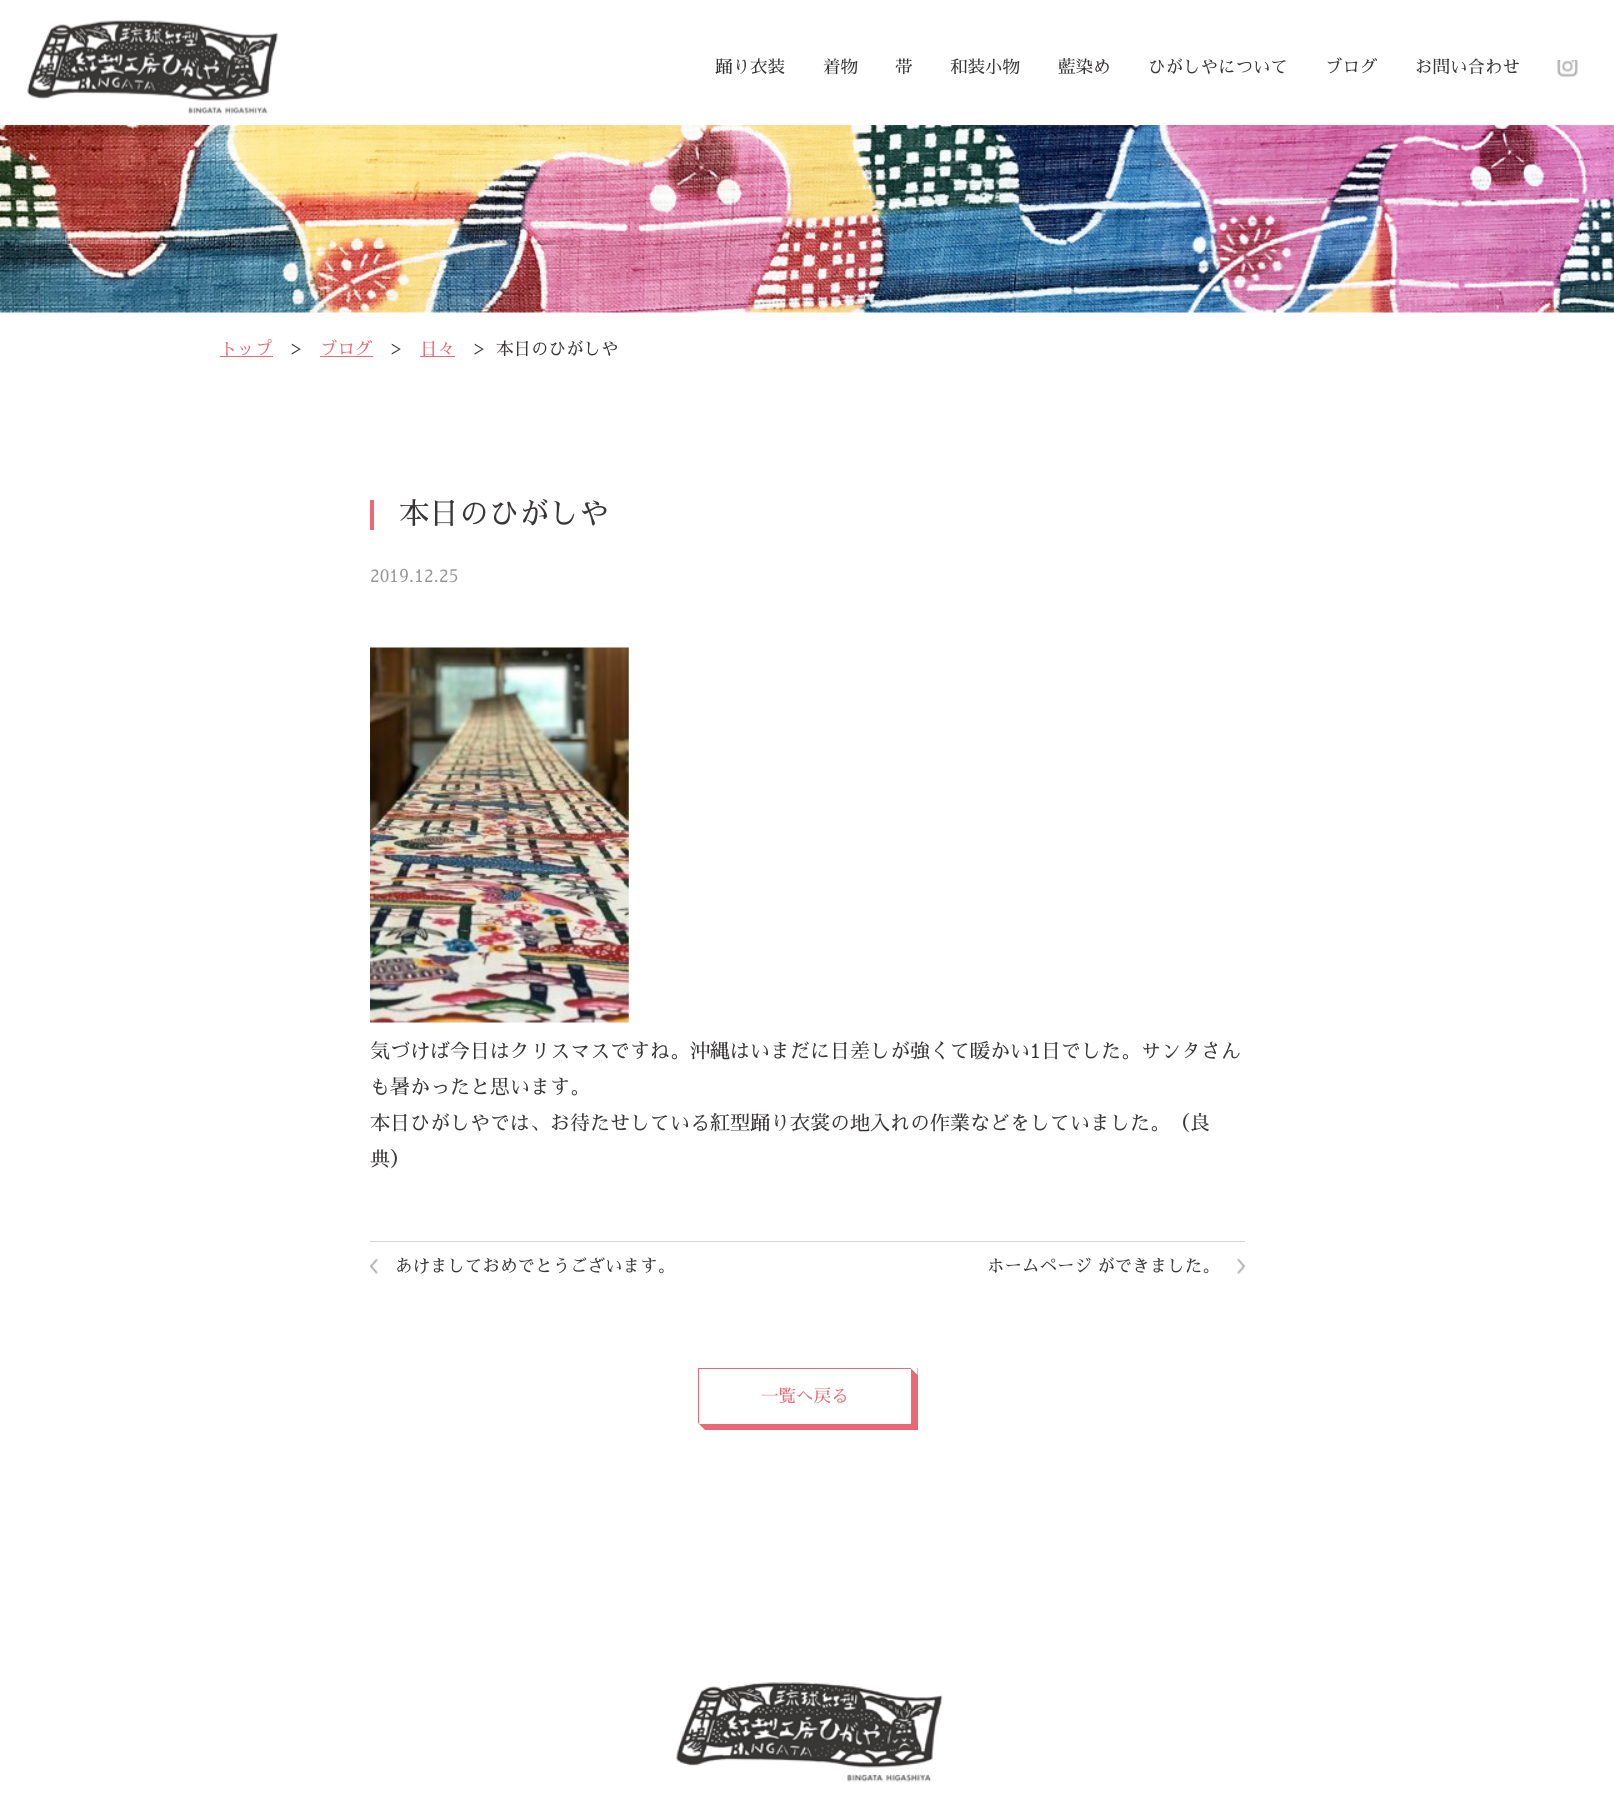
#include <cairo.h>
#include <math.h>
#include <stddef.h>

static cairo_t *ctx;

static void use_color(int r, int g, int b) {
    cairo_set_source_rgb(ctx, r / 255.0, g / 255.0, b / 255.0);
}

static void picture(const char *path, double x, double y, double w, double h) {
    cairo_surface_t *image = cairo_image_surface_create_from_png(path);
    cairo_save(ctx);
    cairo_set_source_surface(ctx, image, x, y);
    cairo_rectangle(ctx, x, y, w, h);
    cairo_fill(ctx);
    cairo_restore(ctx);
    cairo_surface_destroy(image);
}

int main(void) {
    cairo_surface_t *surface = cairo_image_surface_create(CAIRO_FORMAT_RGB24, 1614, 1816);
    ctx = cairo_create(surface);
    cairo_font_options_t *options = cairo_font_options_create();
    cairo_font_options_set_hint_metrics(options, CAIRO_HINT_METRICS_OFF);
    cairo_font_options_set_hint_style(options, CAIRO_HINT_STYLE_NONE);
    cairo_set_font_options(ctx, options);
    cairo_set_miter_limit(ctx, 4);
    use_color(255, 255, 255);
    cairo_paint(ctx);
    picture("img1.png", 27, 20, 251, 95);
    cairo_select_font_face(ctx, "Sawarabi Mincho", CAIRO_FONT_SLANT_NORMAL, CAIRO_FONT_WEIGHT_NORMAL);
    cairo_set_font_size(ctx, 17.5);
    use_color(57, 54, 54);
    cairo_move_to(ctx, 715, 73);
    cairo_show_text(ctx, "踊り衣装");
    cairo_move_to(ctx, 823, 73);
    cairo_show_text(ctx, "着物");
    cairo_move_to(ctx, 895, 73);
    cairo_show_text(ctx, "帯");
    cairo_move_to(ctx, 950, 73);
    cairo_show_text(ctx, "和装小物");
    cairo_move_to(ctx, 1058, 73);
    cairo_show_text(ctx, "藍染め");
    cairo_move_to(ctx, 1148, 73);
    cairo_show_text(ctx, "ひがしやについて");
    cairo_move_to(ctx, 1325, 73);
    cairo_show_text(ctx, "ブログ");
    cairo_move_to(ctx, 1415, 73);
    cairo_show_text(ctx, "お問い合わせ");
    picture("img2.png", 1557, 60, 21, 17);
    picture("img3.png", 0, 125, 1614, 188);
    use_color(235, 104, 119);
    cairo_move_to(ctx, 220, 355);
    cairo_show_text(ctx, "トップ");
    cairo_rectangle(ctx, 220, 356, 53, 1);
    cairo_fill(ctx);
    cairo_set_font_size(ctx, 20);
    use_color(57, 54, 54);
    cairo_move_to(ctx, 291, 355);
    cairo_show_text(ctx, ">");
    cairo_set_font_size(ctx, 17.5);
    use_color(235, 104, 119);
    cairo_move_to(ctx, 320, 355);
    cairo_show_text(ctx, "ブログ");
    cairo_rectangle(ctx, 320, 356, 53, 1);
    cairo_fill(ctx);
    cairo_set_font_size(ctx, 20);
    use_color(57, 54, 54);
    cairo_move_to(ctx, 391, 355);
    cairo_show_text(ctx, ">");
    use_color(235, 104, 119);
    cairo_rectangle(ctx, 420, 356, 35, 1);
    cairo_fill(ctx);
    cairo_set_font_size(ctx, 17.5);
    cairo_move_to(ctx, 420, 355);
    cairo_show_text(ctx, "日々");
    cairo_set_font_size(ctx, 20);
    use_color(57, 54, 54);
    cairo_move_to(ctx, 474, 355);
    cairo_show_text(ctx, ">");
    cairo_set_font_size(ctx, 17.5);
    cairo_move_to(ctx, 496, 355);
    cairo_show_text(ctx, "本日のひがしや");
    use_color(235, 104, 119);
    cairo_rectangle(ctx, 370, 500, 4, 30);
    cairo_fill(ctx);
    cairo_set_font_size(ctx, 30);
    use_color(57, 54, 54);
    cairo_move_to(ctx, 399, 524);
    cairo_show_text(ctx, "本日のひがしや");
    cairo_set_font_size(ctx, 17.5);
    use_color(149, 149, 149);
    cairo_move_to(ctx, 370, 582);
    cairo_show_text(ctx, "2019.12.25");
    use_color(210, 210, 210);
    cairo_rectangle(ctx, 370, 1241, 875, 1);
    cairo_fill(ctx);
    picture("img4.png", 370, 647, 259, 376);
    cairo_set_font_size(ctx, 20);
    use_color(57, 54, 54);
    cairo_move_to(ctx, 370, 1058);
    cairo_show_text(ctx, "気づけば今日はクリスマスですね。沖縄はいまだに日差しが強くて暖かい1日でした。サンタさん");
    cairo_move_to(ctx, 370, 1094);
    cairo_show_text(ctx, "も暑かったと思います。");
    cairo_move_to(ctx, 370, 1130);
    cairo_show_text(ctx, "本日ひがしやでは、お待たせしている紅型踊り衣裳の地入れの作業などをしていました。（良");
    cairo_move_to(ctx, 370, 1166);
    cairo_show_text(ctx, "典）");
    picture("img5.png", 370, 1258, 8, 16);
    cairo_set_font_size(ctx, 17.5);
    cairo_move_to(ctx, 395, 1272);
    cairo_show_text(ctx, "あけましておめでとうございます。");
    picture("img6.png", 1237, 1258, 8, 16);
    cairo_move_to(ctx, 987, 1272);
    cairo_show_text(ctx, "ホームページ ができました。");
    use_color(235, 104, 119);
    cairo_rectangle(ctx, 698, 1368, 220, 1);
    cairo_fill(ctx);
    cairo_rectangle(ctx, 911, 1368, 7, 62);
    cairo_fill(ctx);
    cairo_rectangle(ctx, 698, 1424, 220, 6);
    cairo_fill(ctx);
    cairo_rectangle(ctx, 698, 1368, 1, 62);
    cairo_fill(ctx);
    use_color(255, 255, 255);
    cairo_new_path(ctx);
    cairo_move_to(ctx, 917.5, 1367.5);
    cairo_line_to(ctx, 917.5, 1375);
    cairo_line_to(ctx, 910, 1367.5);
    cairo_close_path(ctx);
    cairo_fill(ctx);
    use_color(235, 104, 119);
    cairo_move_to(ctx, 761, 1402);
    cairo_show_text(ctx, "一覧へ戻る");
    use_color(255, 255, 255);
    cairo_new_path(ctx);
    cairo_move_to(ctx, 705, 1430);
    cairo_line_to(ctx, 697.5, 1430);
    cairo_line_to(ctx, 697.5, 1422.5);
    cairo_close_path(ctx);
    cairo_fill(ctx);
    picture("img7.png", 676, 1682, 267, 100);
    cairo_surface_write_to_png(surface, "result.png");
    cairo_font_options_destroy(options);
    cairo_destroy(ctx);
    cairo_surface_destroy(surface);
    return 0;
}
